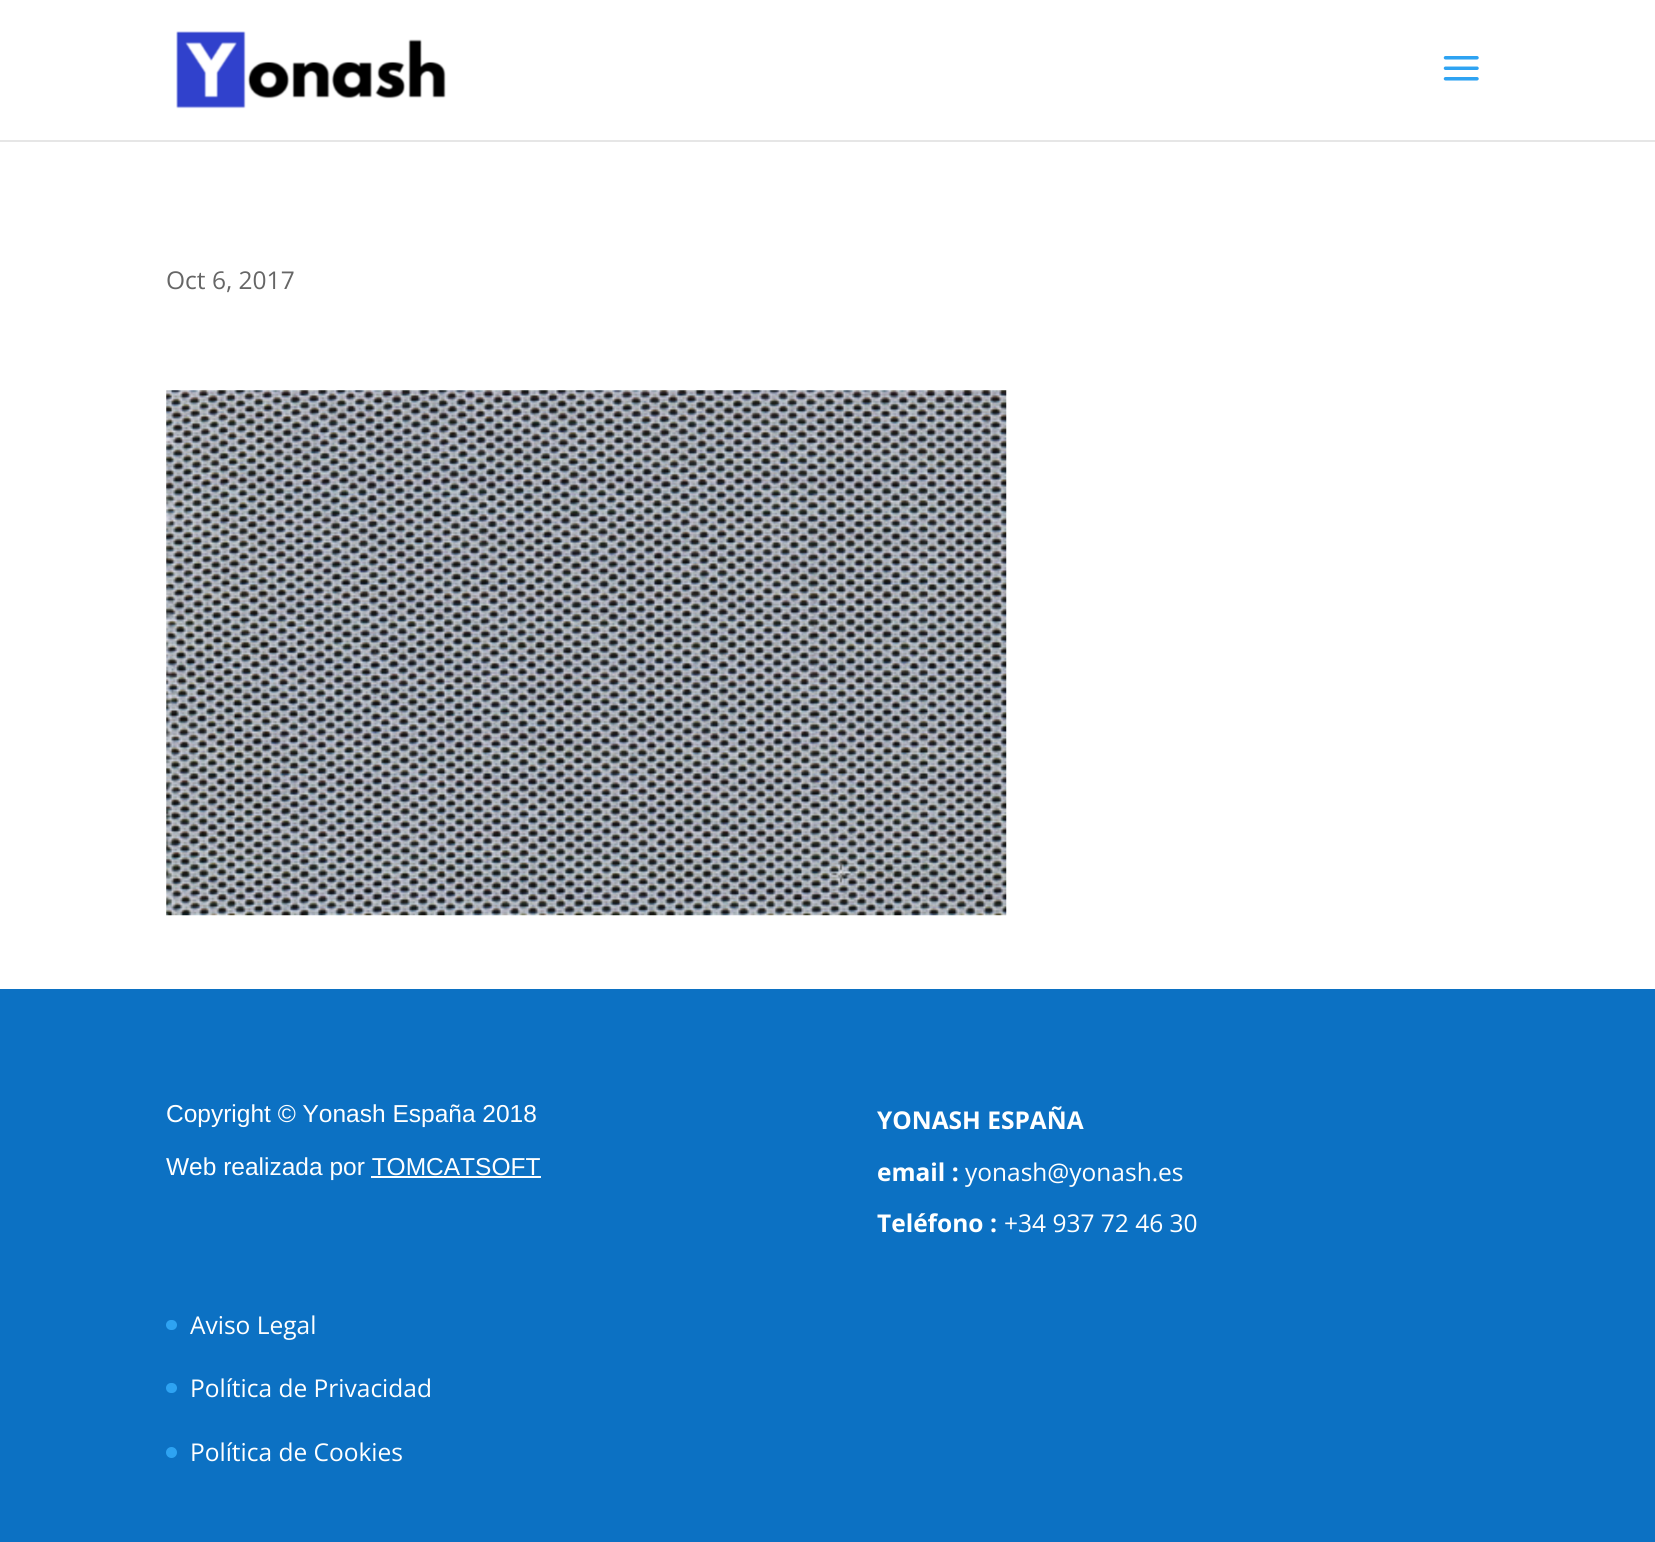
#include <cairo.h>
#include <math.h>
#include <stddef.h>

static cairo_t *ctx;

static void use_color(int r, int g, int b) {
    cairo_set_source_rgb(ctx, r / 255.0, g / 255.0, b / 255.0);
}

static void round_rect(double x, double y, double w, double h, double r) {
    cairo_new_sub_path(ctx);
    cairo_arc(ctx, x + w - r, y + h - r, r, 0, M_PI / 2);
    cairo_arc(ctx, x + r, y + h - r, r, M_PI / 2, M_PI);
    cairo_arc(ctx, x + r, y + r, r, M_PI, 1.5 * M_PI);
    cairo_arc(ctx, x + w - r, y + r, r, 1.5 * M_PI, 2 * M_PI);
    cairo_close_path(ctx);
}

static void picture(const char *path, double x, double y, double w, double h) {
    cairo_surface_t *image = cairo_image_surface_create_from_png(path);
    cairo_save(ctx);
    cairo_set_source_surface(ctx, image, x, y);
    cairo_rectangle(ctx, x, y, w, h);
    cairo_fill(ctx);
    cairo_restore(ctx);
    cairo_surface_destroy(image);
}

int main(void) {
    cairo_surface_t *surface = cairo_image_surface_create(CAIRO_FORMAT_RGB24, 1655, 1542);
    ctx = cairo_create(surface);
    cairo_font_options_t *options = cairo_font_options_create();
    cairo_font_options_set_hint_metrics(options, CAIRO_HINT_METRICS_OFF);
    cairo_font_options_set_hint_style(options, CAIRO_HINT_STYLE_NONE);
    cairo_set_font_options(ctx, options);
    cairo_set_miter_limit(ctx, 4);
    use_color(255, 255, 255);
    cairo_paint(ctx);
    use_color(230, 230, 230);
    cairo_new_path(ctx);
    cairo_move_to(ctx, 0, 140);
    cairo_line_to(ctx, 0, 142);
    cairo_line_to(ctx, 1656, 142);
    cairo_line_to(ctx, 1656, 2);
    cairo_line_to(ctx, 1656, 140);
    cairo_close_path(ctx);
    cairo_fill(ctx);
    picture("img1.png", 176, 31, 270, 78);
    picture("img2.png", 1443, 56, 36, 25);
    cairo_select_font_face(ctx, "Open Sans", CAIRO_FONT_SLANT_NORMAL, CAIRO_FONT_WEIGHT_NORMAL);
    cairo_set_font_size(ctx, 24.5);
    use_color(102, 102, 102);
    cairo_move_to(ctx, 166, 289);
    cairo_show_text(ctx, "Oct 6, 2017");
    picture("img3.png", 166, 390, 841, 526);
    use_color(12, 113, 195);
    cairo_rectangle(ctx, 0, 989, 1655, 553);
    cairo_fill(ctx);
    cairo_select_font_face(ctx, "Liberation Sans", CAIRO_FONT_SLANT_NORMAL, CAIRO_FONT_WEIGHT_NORMAL);
    use_color(255, 255, 255);
    cairo_move_to(ctx, 166, 1122);
    cairo_show_text(ctx, "Copyright © Yonash España 2018");
    cairo_move_to(ctx, 166, 1175);
    cairo_show_text(ctx, "Web realizada por TOMCATSOFT");
    cairo_rectangle(ctx, 371, 1176, 170, 2);
    cairo_fill(ctx);
    cairo_select_font_face(ctx, "Open Sans", CAIRO_FONT_SLANT_NORMAL, CAIRO_FONT_WEIGHT_BOLD);
    cairo_move_to(ctx, 877, 1129);
    cairo_show_text(ctx, "YONASH ESPAÑA");
    cairo_move_to(ctx, 877, 1181);
    cairo_show_text(ctx, "email :");
    cairo_select_font_face(ctx, "Open Sans", CAIRO_FONT_SLANT_NORMAL, CAIRO_FONT_WEIGHT_NORMAL);
    cairo_move_to(ctx, 965, 1181);
    cairo_show_text(ctx, "yonash@yonash.es");
    cairo_select_font_face(ctx, "Open Sans", CAIRO_FONT_SLANT_NORMAL, CAIRO_FONT_WEIGHT_BOLD);
    cairo_move_to(ctx, 877, 1232);
    cairo_show_text(ctx, "Teléfono :");
    cairo_select_font_face(ctx, "Open Sans", CAIRO_FONT_SLANT_NORMAL, CAIRO_FONT_WEIGHT_NORMAL);
    cairo_move_to(ctx, 1004, 1232);
    cairo_show_text(ctx, "+34 937 72 46 30");
    use_color(46, 163, 242);
    round_rect(166, 1320, 11, 10, 5);
    cairo_fill(ctx);
    use_color(255, 255, 255);
    cairo_move_to(ctx, 190, 1334);
    cairo_show_text(ctx, "Aviso Legal");
    use_color(46, 163, 242);
    round_rect(166, 1383, 11, 10, 5);
    cairo_fill(ctx);
    use_color(255, 255, 255);
    cairo_move_to(ctx, 190, 1397);
    cairo_show_text(ctx, "Política de Privacidad");
    use_color(46, 163, 242);
    cairo_new_path(ctx);
    cairo_arc(ctx, 171.5, 1452.5, 5.5, 0, 2 * M_PI);
    cairo_fill(ctx);
    use_color(255, 255, 255);
    cairo_move_to(ctx, 190, 1461);
    cairo_show_text(ctx, "Política de Cookies");
    cairo_surface_write_to_png(surface, "result.png");
    cairo_font_options_destroy(options);
    cairo_destroy(ctx);
    cairo_surface_destroy(surface);
    return 0;
}
